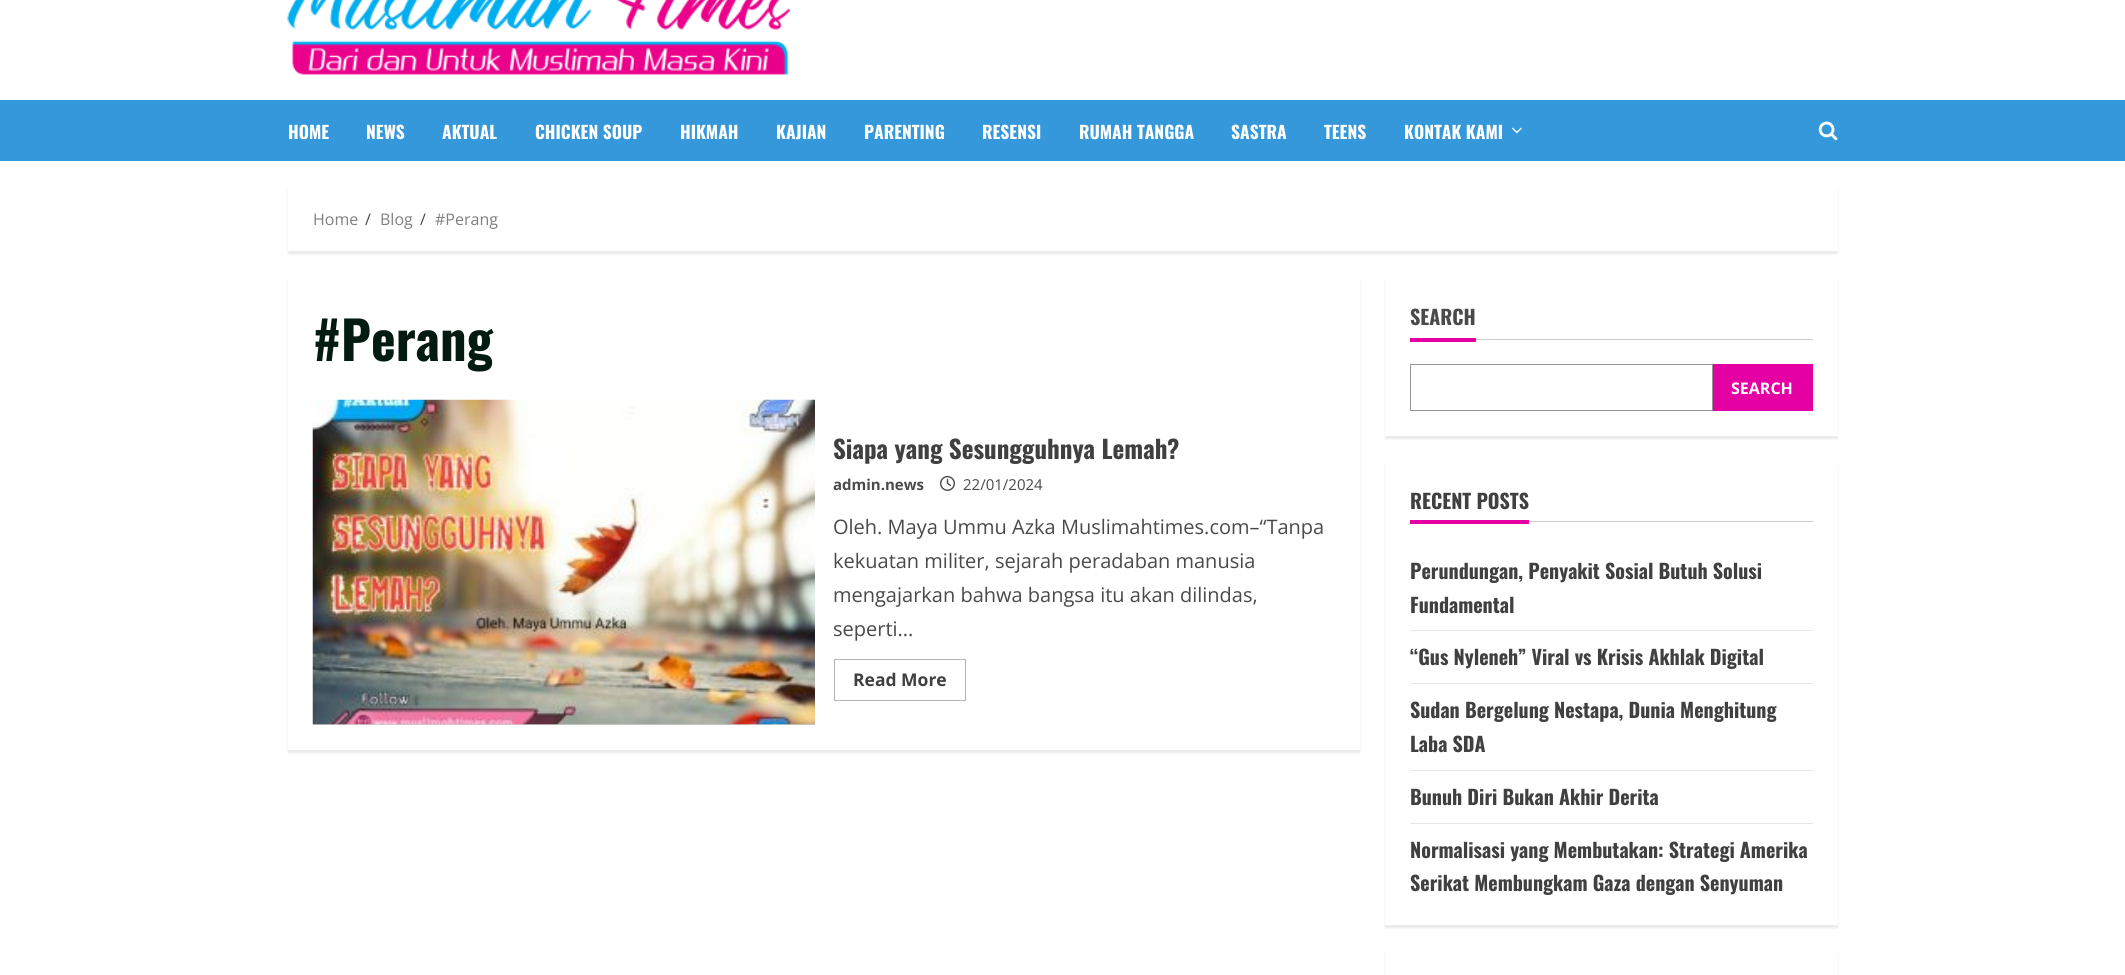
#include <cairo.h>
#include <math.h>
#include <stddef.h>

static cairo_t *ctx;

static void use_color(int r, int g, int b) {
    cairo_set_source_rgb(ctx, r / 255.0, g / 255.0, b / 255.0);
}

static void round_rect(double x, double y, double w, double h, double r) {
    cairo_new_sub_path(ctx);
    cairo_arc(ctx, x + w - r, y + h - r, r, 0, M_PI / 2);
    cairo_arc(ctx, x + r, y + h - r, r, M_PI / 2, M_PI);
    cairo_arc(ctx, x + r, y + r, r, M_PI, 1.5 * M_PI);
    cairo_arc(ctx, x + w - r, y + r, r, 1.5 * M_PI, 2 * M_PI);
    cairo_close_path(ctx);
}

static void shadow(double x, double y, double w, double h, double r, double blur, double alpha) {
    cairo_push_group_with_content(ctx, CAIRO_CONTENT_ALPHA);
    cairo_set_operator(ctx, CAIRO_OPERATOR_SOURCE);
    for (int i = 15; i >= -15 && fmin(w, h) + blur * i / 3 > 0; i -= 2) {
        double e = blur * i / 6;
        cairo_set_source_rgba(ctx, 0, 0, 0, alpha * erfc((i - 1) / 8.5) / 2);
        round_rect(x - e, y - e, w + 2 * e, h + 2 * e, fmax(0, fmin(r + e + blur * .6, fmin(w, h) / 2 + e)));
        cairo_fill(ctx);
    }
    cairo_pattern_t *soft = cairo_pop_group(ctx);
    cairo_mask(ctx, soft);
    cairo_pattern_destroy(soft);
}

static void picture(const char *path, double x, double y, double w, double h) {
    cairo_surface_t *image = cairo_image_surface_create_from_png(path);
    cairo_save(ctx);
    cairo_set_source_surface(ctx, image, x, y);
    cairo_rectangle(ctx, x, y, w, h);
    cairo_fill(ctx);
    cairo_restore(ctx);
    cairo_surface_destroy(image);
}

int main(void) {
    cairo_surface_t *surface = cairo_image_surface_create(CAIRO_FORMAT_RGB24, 2125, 975);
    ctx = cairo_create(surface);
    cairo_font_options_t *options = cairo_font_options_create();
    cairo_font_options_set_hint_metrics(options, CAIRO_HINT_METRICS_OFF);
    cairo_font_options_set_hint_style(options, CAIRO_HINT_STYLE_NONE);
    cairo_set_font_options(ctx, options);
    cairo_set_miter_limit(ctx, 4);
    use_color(255, 255, 255);
    cairo_paint(ctx);
    picture("img1.png", 287, 0, 503, 75);
    use_color(52, 152, 219);
    cairo_rectangle(ctx, 0, 100, 2125, 61);
    cairo_fill(ctx);
    cairo_select_font_face(ctx, "Oswald", CAIRO_FONT_SLANT_NORMAL, CAIRO_FONT_WEIGHT_BOLD);
    cairo_set_font_size(ctx, 17.5);
    use_color(255, 255, 255);
    cairo_move_to(ctx, 288, 139);
    cairo_show_text(ctx, "HOME");
    cairo_move_to(ctx, 366, 139);
    cairo_show_text(ctx, "NEWS");
    cairo_move_to(ctx, 442, 139);
    cairo_show_text(ctx, "AKTUAL");
    cairo_move_to(ctx, 535, 139);
    cairo_show_text(ctx, "CHICKEN SOUP");
    cairo_move_to(ctx, 680, 139);
    cairo_show_text(ctx, "HIKMAH");
    cairo_move_to(ctx, 776, 139);
    cairo_show_text(ctx, "KAJIAN");
    cairo_move_to(ctx, 864, 139);
    cairo_show_text(ctx, "PARENTING");
    cairo_move_to(ctx, 982, 139);
    cairo_show_text(ctx, "RESENSI");
    cairo_move_to(ctx, 1079, 139);
    cairo_show_text(ctx, "RUMAH TANGGA");
    cairo_move_to(ctx, 1231, 139);
    cairo_show_text(ctx, "SASTRA");
    cairo_move_to(ctx, 1324, 139);
    cairo_show_text(ctx, "TEENS");
    cairo_move_to(ctx, 1404, 139);
    cairo_show_text(ctx, "KONTAK KAMI");
    picture("img2.png", 1512, 127, 10, 7);
    picture("img3.png", 1818, 121, 20, 20);
    use_color(0, 0, 0);
    shadow(288, 189, 1550, 65, 0, 1, 0.08);
    use_color(255, 255, 255);
    cairo_rectangle(ctx, 288, 188, 1550, 63);
    cairo_fill(ctx);
    cairo_select_font_face(ctx, "Open Sans", CAIRO_FONT_SLANT_NORMAL, CAIRO_FONT_WEIGHT_NORMAL);
    cairo_set_font_size(ctx, 16);
    use_color(128, 128, 128);
    cairo_move_to(ctx, 313, 225);
    cairo_show_text(ctx, "Home");
    use_color(74, 74, 74);
    cairo_move_to(ctx, 365, 225);
    cairo_show_text(ctx, "/");
    use_color(128, 128, 128);
    cairo_move_to(ctx, 380, 225);
    cairo_show_text(ctx, "Blog");
    use_color(74, 74, 74);
    cairo_move_to(ctx, 420, 225);
    cairo_show_text(ctx, "/");
    use_color(128, 128, 128);
    cairo_move_to(ctx, 435, 225);
    cairo_show_text(ctx, "#Perang");
    cairo_save(ctx);
    cairo_set_fill_rule(ctx, CAIRO_FILL_RULE_EVEN_ODD);
    cairo_new_path(ctx);
    cairo_move_to(ctx, 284, 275);
    cairo_line_to(ctx, 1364, 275);
    cairo_line_to(ctx, 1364, 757);
    cairo_line_to(ctx, 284, 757);
    cairo_close_path(ctx);
    cairo_move_to(ctx, 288, 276);
    cairo_line_to(ctx, 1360, 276);
    cairo_line_to(ctx, 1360, 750);
    cairo_line_to(ctx, 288, 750);
    cairo_close_path(ctx);
    cairo_clip(ctx);
    use_color(0, 0, 0);
    shadow(288, 279, 1072, 474, 0, 1, 0.08);
    cairo_restore(ctx);
    cairo_select_font_face(ctx, "Oswald", CAIRO_FONT_SLANT_NORMAL, CAIRO_FONT_WEIGHT_BOLD);
    cairo_set_font_size(ctx, 52.5);
    use_color(3, 27, 17);
    cairo_move_to(ctx, 313, 361);
    cairo_show_text(ctx, "#Perang");
    use_color(204, 204, 204);
    cairo_rectangle(ctx, 313, 724, 502, 1);
    cairo_fill(ctx);
    picture("img4.png", 312, 399, 503, 326);
    cairo_set_font_size(ctx, 25);
    use_color(64, 64, 64);
    cairo_move_to(ctx, 833, 459);
    cairo_show_text(ctx, "Siapa yang Sesungguhnya Lemah?");
    cairo_select_font_face(ctx, "Open Sans", CAIRO_FONT_SLANT_NORMAL, CAIRO_FONT_WEIGHT_BOLD);
    cairo_set_font_size(ctx, 15);
    use_color(74, 74, 74);
    cairo_move_to(ctx, 833, 490);
    cairo_show_text(ctx, "admin.news");
    picture("img5.png", 940, 475, 15, 16);
    cairo_select_font_face(ctx, "Open Sans", CAIRO_FONT_SLANT_NORMAL, CAIRO_FONT_WEIGHT_NORMAL);
    cairo_move_to(ctx, 963, 490);
    cairo_show_text(ctx, "22/01/2024");
    cairo_set_font_size(ctx, 20);
    cairo_move_to(ctx, 833, 534);
    cairo_show_text(ctx, "Oleh. Maya Ummu Azka Muslimahtimes.com–“Tanpa");
    cairo_move_to(ctx, 833, 568);
    cairo_show_text(ctx, "kekuatan militer, sejarah peradaban manusia");
    cairo_move_to(ctx, 833, 602);
    cairo_show_text(ctx, "mengajarkan bahwa bangsa itu akan dilindas,");
    cairo_move_to(ctx, 833, 636);
    cairo_show_text(ctx, "seperti...");
    cairo_rectangle(ctx, 834.5, 659.5, 131, 41);
    use_color(179, 179, 179);
    cairo_set_line_width(ctx, 1);
    cairo_stroke(ctx);
    cairo_select_font_face(ctx, "Open Sans", CAIRO_FONT_SLANT_NORMAL, CAIRO_FONT_WEIGHT_BOLD);
    cairo_set_font_size(ctx, 17.5);
    use_color(64, 64, 64);
    cairo_move_to(ctx, 853, 686);
    cairo_show_text(ctx, "Read More");
    use_color(0, 0, 0);
    shadow(1385, 279, 453, 160, 0, 1, 0.08);
    use_color(255, 255, 255);
    cairo_rectangle(ctx, 1385, 278, 453, 158);
    cairo_fill(ctx);
    cairo_select_font_face(ctx, "Oswald", CAIRO_FONT_SLANT_NORMAL, CAIRO_FONT_WEIGHT_BOLD);
    cairo_set_font_size(ctx, 20);
    use_color(74, 74, 74);
    cairo_move_to(ctx, 1410, 325);
    cairo_show_text(ctx, "SEARCH");
    use_color(229, 0, 164);
    cairo_rectangle(ctx, 1410, 338, 66, 4);
    cairo_fill(ctx);
    use_color(204, 204, 204);
    cairo_rectangle(ctx, 1476, 339, 337, 1);
    cairo_fill(ctx);
    cairo_rectangle(ctx, 1410.5, 364.5, 302, 46);
    use_color(148, 148, 148);
    cairo_stroke(ctx);
    use_color(229, 0, 164);
    cairo_rectangle(ctx, 1713, 364, 100, 47);
    cairo_fill(ctx);
    cairo_select_font_face(ctx, "Open Sans", CAIRO_FONT_SLANT_NORMAL, CAIRO_FONT_WEIGHT_BOLD);
    cairo_set_font_size(ctx, 16);
    use_color(255, 255, 255);
    cairo_move_to(ctx, 1731, 394);
    cairo_show_text(ctx, "SEARCH");
    use_color(0, 0, 0);
    shadow(1385, 464, 453, 464, 0, 1, 0.08);
    use_color(255, 255, 255);
    cairo_rectangle(ctx, 1385, 463, 453, 462);
    cairo_fill(ctx);
    cairo_select_font_face(ctx, "Oswald", CAIRO_FONT_SLANT_NORMAL, CAIRO_FONT_WEIGHT_BOLD);
    cairo_set_font_size(ctx, 20);
    use_color(64, 64, 64);
    cairo_move_to(ctx, 1410, 509);
    cairo_show_text(ctx, "RECENT POSTS");
    use_color(229, 0, 164);
    cairo_rectangle(ctx, 1410, 520, 119, 4);
    cairo_fill(ctx);
    use_color(204, 204, 204);
    cairo_rectangle(ctx, 1529, 521, 284, 1);
    cairo_fill(ctx);
    use_color(230, 230, 230);
    cairo_rectangle(ctx, 1410, 630, 403, 1);
    cairo_fill(ctx);
    use_color(64, 64, 64);
    cairo_move_to(ctx, 1410, 579);
    cairo_show_text(ctx, "Perundungan, Penyakit Sosial Butuh Solusi");
    cairo_move_to(ctx, 1410, 613);
    cairo_show_text(ctx, "Fundamental");
    use_color(230, 230, 230);
    cairo_rectangle(ctx, 1410, 683, 403, 1);
    cairo_fill(ctx);
    use_color(64, 64, 64);
    cairo_move_to(ctx, 1410, 665);
    cairo_show_text(ctx, "“Gus Nyleneh” Viral vs Krisis Akhlak Digital");
    use_color(230, 230, 230);
    cairo_rectangle(ctx, 1410, 770, 403, 1);
    cairo_fill(ctx);
    use_color(64, 64, 64);
    cairo_move_to(ctx, 1410, 718);
    cairo_show_text(ctx, "Sudan Bergelung Nestapa, Dunia Menghitung");
    cairo_move_to(ctx, 1410, 752);
    cairo_show_text(ctx, "Laba SDA");
    use_color(230, 230, 230);
    cairo_rectangle(ctx, 1410, 823, 403, 1);
    cairo_fill(ctx);
    use_color(64, 64, 64);
    cairo_move_to(ctx, 1410, 805);
    cairo_show_text(ctx, "Bunuh Diri Bukan Akhir Derita");
    cairo_move_to(ctx, 1410, 858);
    cairo_show_text(ctx, "Normalisasi yang Membutakan: Strategi Amerika");
    cairo_move_to(ctx, 1410, 891);
    cairo_show_text(ctx, "Serikat Membungkam Gaza dengan Senyuman");
    use_color(0, 0, 0);
    shadow(1385, 953, 453, 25, 0, 1, 0.08);
    use_color(255, 255, 255);
    cairo_rectangle(ctx, 1385, 952, 453, 23);
    cairo_fill(ctx);
    cairo_surface_write_to_png(surface, "result.png");
    cairo_font_options_destroy(options);
    cairo_destroy(ctx);
    cairo_surface_destroy(surface);
    return 0;
}
